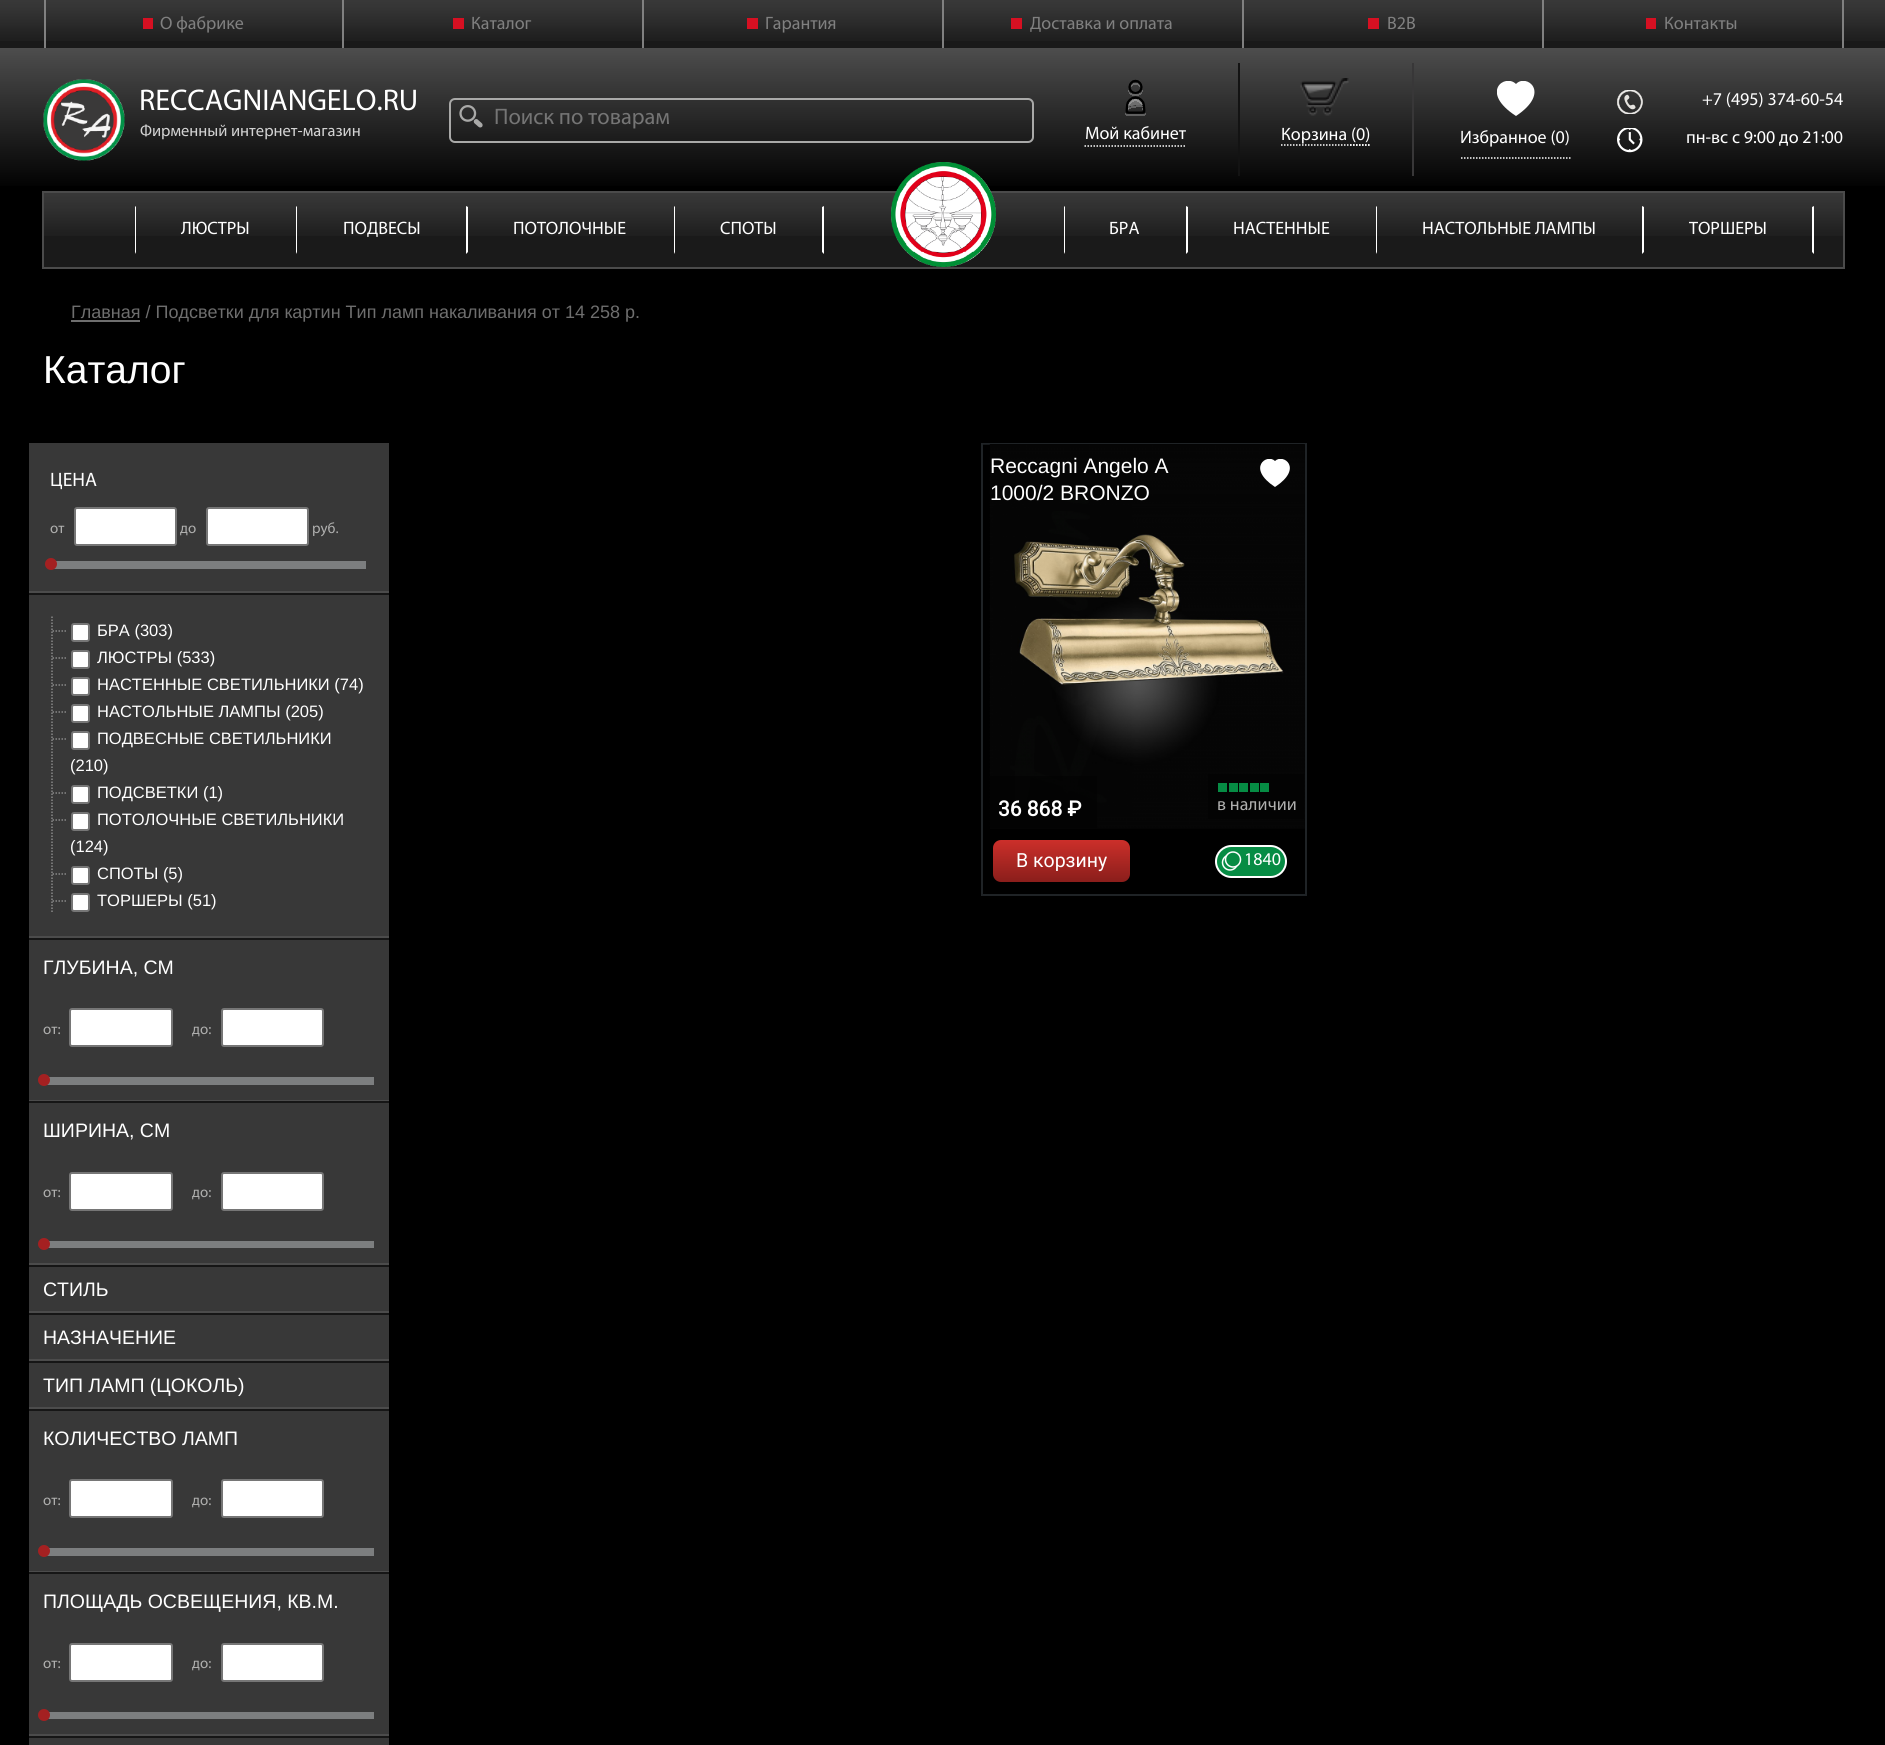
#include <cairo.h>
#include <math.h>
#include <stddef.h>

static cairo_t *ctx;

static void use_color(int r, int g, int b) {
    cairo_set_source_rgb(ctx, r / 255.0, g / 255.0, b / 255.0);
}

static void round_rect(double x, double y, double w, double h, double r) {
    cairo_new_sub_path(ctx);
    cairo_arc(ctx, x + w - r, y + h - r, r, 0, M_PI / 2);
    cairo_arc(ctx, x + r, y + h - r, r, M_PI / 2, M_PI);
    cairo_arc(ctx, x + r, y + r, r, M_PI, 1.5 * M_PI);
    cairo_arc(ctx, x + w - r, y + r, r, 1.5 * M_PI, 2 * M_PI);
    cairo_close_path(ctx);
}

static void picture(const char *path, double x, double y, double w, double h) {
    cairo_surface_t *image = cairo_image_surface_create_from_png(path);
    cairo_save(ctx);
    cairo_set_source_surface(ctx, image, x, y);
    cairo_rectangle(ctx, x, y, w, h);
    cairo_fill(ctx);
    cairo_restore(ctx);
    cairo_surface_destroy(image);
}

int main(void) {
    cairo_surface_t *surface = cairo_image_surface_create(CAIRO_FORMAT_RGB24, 1885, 1745);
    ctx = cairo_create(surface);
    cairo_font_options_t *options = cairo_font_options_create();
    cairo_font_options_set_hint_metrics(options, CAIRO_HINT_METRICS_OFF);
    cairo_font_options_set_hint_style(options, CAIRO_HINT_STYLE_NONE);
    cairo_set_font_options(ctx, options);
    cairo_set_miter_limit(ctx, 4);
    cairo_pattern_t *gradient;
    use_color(0, 0, 0);
    cairo_paint(ctx);
    use_color(25, 25, 25);
    cairo_rectangle(ctx, 0, 41, 1885, 7);
    cairo_fill(ctx);
    picture("img1.png", 0, 0, 1885, 41);
    use_color(128, 128, 128);
    cairo_rectangle(ctx, 342, 0, 2, 48);
    cairo_fill(ctx);
    cairo_rectangle(ctx, 44, 0, 2, 48);
    cairo_fill(ctx);
    use_color(214, 16, 34);
    cairo_rectangle(ctx, 143, 18, 10, 11);
    cairo_fill(ctx);
    cairo_select_font_face(ctx, "Myriad", CAIRO_FONT_SLANT_NORMAL, CAIRO_FONT_WEIGHT_NORMAL);
    cairo_set_font_size(ctx, 18);
    use_color(128, 128, 128);
    cairo_move_to(ctx, 160, 29);
    cairo_show_text(ctx, "О фабрике");
    cairo_rectangle(ctx, 642, 0, 2, 48);
    cairo_fill(ctx);
    use_color(214, 16, 34);
    cairo_rectangle(ctx, 453, 18, 11, 11);
    cairo_fill(ctx);
    use_color(128, 128, 128);
    cairo_move_to(ctx, 471, 29);
    cairo_show_text(ctx, "Каталог");
    cairo_rectangle(ctx, 942, 0, 2, 48);
    cairo_fill(ctx);
    use_color(214, 16, 34);
    cairo_rectangle(ctx, 747, 18, 11, 11);
    cairo_fill(ctx);
    use_color(128, 128, 128);
    cairo_move_to(ctx, 765, 29);
    cairo_show_text(ctx, "Гарантия");
    cairo_rectangle(ctx, 1242, 0, 2, 48);
    cairo_fill(ctx);
    use_color(214, 16, 34);
    cairo_rectangle(ctx, 1011, 18, 11, 11);
    cairo_fill(ctx);
    use_color(128, 128, 128);
    cairo_move_to(ctx, 1030, 29);
    cairo_show_text(ctx, "Доставка и оплата");
    cairo_rectangle(ctx, 1542, 0, 2, 48);
    cairo_fill(ctx);
    use_color(214, 16, 34);
    cairo_rectangle(ctx, 1368, 18, 11, 11);
    cairo_fill(ctx);
    use_color(128, 128, 128);
    cairo_move_to(ctx, 1387, 29);
    cairo_show_text(ctx, "B2B");
    cairo_rectangle(ctx, 1842, 0, 2, 48);
    cairo_fill(ctx);
    use_color(214, 16, 34);
    cairo_rectangle(ctx, 1646, 18, 10, 11);
    cairo_fill(ctx);
    use_color(128, 128, 128);
    cairo_move_to(ctx, 1664, 29);
    cairo_show_text(ctx, "Контакты");
    gradient = cairo_pattern_create_linear(943, 48, 943, 191);
    cairo_pattern_add_color_stop_rgba(gradient, 0, 0.302, 0.302, 0.302, 1);
    cairo_pattern_add_color_stop_rgba(gradient, 1, 0, 0, 0, 1);
    cairo_set_source(ctx, gradient);
    cairo_pattern_destroy(gradient);
    cairo_rectangle(ctx, 0, 48, 1885, 138);
    cairo_fill(ctx);
    picture("img2.png", 43, 79, 82, 82);
    cairo_set_font_size(ctx, 30);
    use_color(255, 255, 255);
    cairo_move_to(ctx, 139, 110);
    cairo_show_text(ctx, "RECCAGNIANGELO.RU");
    cairo_set_font_size(ctx, 16.5);
    use_color(211, 211, 211);
    cairo_move_to(ctx, 140, 136);
    cairo_show_text(ctx, "Фирменный интернет-магазин");
    round_rect(450, 99, 583, 43, 5);
    use_color(169, 169, 168);
    cairo_stroke(ctx);
    picture("img3.png", 459, 105, 24, 23);
    cairo_set_font_size(ctx, 22.5);
    use_color(117, 117, 117);
    cairo_move_to(ctx, 494, 124);
    cairo_show_text(ctx, "Поиск по товарам");
    picture("img4.png", 1617, 90, 26, 24);
    cairo_set_font_size(ctx, 18);
    use_color(255, 255, 255);
    cairo_move_to(ctx, 1702, 105);
    cairo_show_text(ctx, "+7 (495) 374-60-54");
    picture("img5.png", 1617, 128, 26, 25);
    cairo_move_to(ctx, 1686, 143);
    cairo_show_text(ctx, "пн-вс с 9:00 до 21:00");
    picture("img6.png", 1125, 79, 21, 37);
    cairo_new_path(ctx);
    cairo_move_to(ctx, 1084.5, 146);
    cairo_line_to(ctx, 1186.5, 146);
    cairo_set_line_width(ctx, 1.5);
    cairo_set_dash(ctx, (double[]){1.5, 1.5}, 2, 0);
    cairo_stroke(ctx);
    cairo_move_to(ctx, 1085, 139);
    cairo_show_text(ctx, "Мой кабинет");
    use_color(56, 55, 56);
    cairo_rectangle(ctx, 1412, 63, 2, 113);
    cairo_fill(ctx);
    use_color(19, 19, 19);
    cairo_rectangle(ctx, 1238, 63, 2, 113);
    cairo_fill(ctx);
    picture("img7.png", 1300, 78, 49, 38);
    use_color(255, 255, 255);
    cairo_move_to(ctx, 1281, 140);
    cairo_show_text(ctx, "Корзина (0)");
    cairo_new_path(ctx);
    cairo_move_to(ctx, 1281, 145);
    cairo_line_to(ctx, 1350, 145);
    cairo_stroke(ctx);
    cairo_new_path(ctx);
    cairo_move_to(ctx, 1350, 145);
    cairo_line_to(ctx, 1369.5, 145);
    cairo_stroke(ctx);
    cairo_new_path(ctx);
    cairo_move_to(ctx, 1350, 145);
    cairo_line_to(ctx, 1369.5, 145);
    cairo_stroke(ctx);
    cairo_save(ctx);
    cairo_rectangle(ctx, 1497, 81, 38, 38);
    cairo_clip(ctx);
    cairo_set_fill_rule(ctx, CAIRO_FILL_RULE_EVEN_ODD);
    cairo_new_path(ctx);
    cairo_move_to(ctx, 1516, 84);
    cairo_curve_to(ctx, 1526, 73, 1552, 92, 1516, 116);
    cairo_curve_to(ctx, 1479, 92, 1505, 73, 1516, 84);
    cairo_fill(ctx);
    cairo_restore(ctx);
    cairo_new_path(ctx);
    cairo_move_to(ctx, 1461, 158);
    cairo_line_to(ctx, 1570.5, 158);
    cairo_stroke(ctx);
    cairo_move_to(ctx, 1460, 143);
    cairo_show_text(ctx, "Избранное (0)");
    use_color(26, 26, 26);
    cairo_rectangle(ctx, 44, 236, 1799, 31);
    cairo_fill(ctx);
    picture("img8.png", 44, 193, 1799, 43);
    cairo_rectangle(ctx, 43, 192, 1801, 76);
    use_color(75, 75, 75);
    cairo_set_line_width(ctx, 2);
    cairo_set_dash(ctx, NULL, 0, 0);
    cairo_stroke(ctx);
    use_color(255, 255, 255);
    cairo_new_path(ctx);
    cairo_move_to(ctx, 135, 254);
    cairo_line_to(ctx, 135, 206);
    cairo_line_to(ctx, 136, 207);
    cairo_line_to(ctx, 136, 252);
    cairo_close_path(ctx);
    cairo_fill(ctx);
    cairo_move_to(ctx, 181, 234);
    cairo_show_text(ctx, "ЛЮСТРЫ");
    cairo_new_path(ctx);
    cairo_move_to(ctx, 296, 254);
    cairo_line_to(ctx, 296, 206);
    cairo_line_to(ctx, 297, 207);
    cairo_line_to(ctx, 297, 252);
    cairo_close_path(ctx);
    cairo_fill(ctx);
    cairo_move_to(ctx, 343, 234);
    cairo_show_text(ctx, "ПОДВЕСЫ");
    cairo_new_path(ctx);
    cairo_move_to(ctx, 466, 254);
    cairo_line_to(ctx, 466, 206);
    cairo_line_to(ctx, 468, 207);
    cairo_line_to(ctx, 468, 252);
    cairo_close_path(ctx);
    cairo_fill(ctx);
    cairo_move_to(ctx, 513, 234);
    cairo_show_text(ctx, "ПОТОЛОЧНЫЕ");
    cairo_new_path(ctx);
    cairo_move_to(ctx, 824, 206);
    cairo_line_to(ctx, 824, 254);
    cairo_line_to(ctx, 822, 252);
    cairo_line_to(ctx, 822, 207);
    cairo_close_path(ctx);
    cairo_fill(ctx);
    cairo_new_path(ctx);
    cairo_move_to(ctx, 674, 254);
    cairo_line_to(ctx, 674, 206);
    cairo_line_to(ctx, 675, 207);
    cairo_line_to(ctx, 675, 252);
    cairo_close_path(ctx);
    cairo_fill(ctx);
    cairo_move_to(ctx, 720, 234);
    cairo_show_text(ctx, "СПОТЫ");
    picture("img9.png", 891, 162, 105, 105);
    cairo_new_path(ctx);
    cairo_move_to(ctx, 1064, 254);
    cairo_line_to(ctx, 1064, 206);
    cairo_line_to(ctx, 1065, 207);
    cairo_line_to(ctx, 1065, 252);
    cairo_close_path(ctx);
    cairo_fill(ctx);
    cairo_move_to(ctx, 1109, 234);
    cairo_show_text(ctx, "БРА");
    cairo_new_path(ctx);
    cairo_move_to(ctx, 1186, 254);
    cairo_line_to(ctx, 1186, 206);
    cairo_line_to(ctx, 1188, 207);
    cairo_line_to(ctx, 1188, 252);
    cairo_close_path(ctx);
    cairo_fill(ctx);
    cairo_move_to(ctx, 1233, 234);
    cairo_show_text(ctx, "НАСТЕННЫЕ");
    cairo_new_path(ctx);
    cairo_move_to(ctx, 1376, 254);
    cairo_line_to(ctx, 1376, 206);
    cairo_line_to(ctx, 1377, 207);
    cairo_line_to(ctx, 1377, 252);
    cairo_close_path(ctx);
    cairo_fill(ctx);
    cairo_move_to(ctx, 1422, 234);
    cairo_show_text(ctx, "НАСТОЛЬНЫЕ ЛАМПЫ");
    cairo_new_path(ctx);
    cairo_move_to(ctx, 1814, 206);
    cairo_line_to(ctx, 1814, 254);
    cairo_line_to(ctx, 1812, 252);
    cairo_line_to(ctx, 1812, 207);
    cairo_close_path(ctx);
    cairo_fill(ctx);
    cairo_new_path(ctx);
    cairo_move_to(ctx, 1642, 254);
    cairo_line_to(ctx, 1642, 206);
    cairo_line_to(ctx, 1644, 207);
    cairo_line_to(ctx, 1644, 252);
    cairo_close_path(ctx);
    cairo_fill(ctx);
    cairo_move_to(ctx, 1689, 234);
    cairo_show_text(ctx, "ТОРШЕРЫ");
    use_color(110, 110, 110);
    cairo_rectangle(ctx, 71, 320, 69, 2);
    cairo_fill(ctx);
    cairo_select_font_face(ctx, "Liberation Sans", CAIRO_FONT_SLANT_NORMAL, CAIRO_FONT_WEIGHT_NORMAL);
    cairo_move_to(ctx, 71, 318);
    cairo_show_text(ctx, "Главная / Подсветки для картин Тип ламп накаливания от 14 258 р.");
    cairo_set_font_size(ctx, 39);
    use_color(255, 255, 255);
    cairo_move_to(ctx, 43, 383);
    cairo_show_text(ctx, "Каталог");
    use_color(56, 56, 56);
    cairo_rectangle(ctx, 29, 443, 360, 1302);
    cairo_fill(ctx);
    use_color(76, 76, 76);
    cairo_rectangle(ctx, 29, 591, 360, 2);
    cairo_fill(ctx);
    cairo_select_font_face(ctx, "Myriad", CAIRO_FONT_SLANT_NORMAL, CAIRO_FONT_WEIGHT_NORMAL);
    cairo_set_font_size(ctx, 19.5);
    use_color(255, 255, 255);
    cairo_move_to(ctx, 50, 486);
    cairo_show_text(ctx, "ЦЕНА");
    cairo_set_font_size(ctx, 15);
    use_color(175, 175, 174);
    cairo_move_to(ctx, 50, 533);
    cairo_show_text(ctx, "от");
    use_color(255, 255, 255);
    round_rect(75, 508, 101, 37, 2);
    cairo_fill_preserve(ctx);
    use_color(118, 118, 118);
    cairo_stroke(ctx);
    use_color(175, 175, 174);
    cairo_move_to(ctx, 180, 533);
    cairo_show_text(ctx, "до");
    use_color(255, 255, 255);
    round_rect(207, 508, 101, 37, 2);
    cairo_fill_preserve(ctx);
    use_color(118, 118, 118);
    cairo_stroke(ctx);
    use_color(175, 175, 174);
    cairo_move_to(ctx, 312, 533);
    cairo_show_text(ctx, "руб.");
    use_color(124, 126, 127);
    cairo_rectangle(ctx, 51, 561, 315, 8);
    cairo_fill(ctx);
    use_color(164, 32, 33);
    cairo_arc(ctx, 51, 564, 6, 0, 2 * M_PI);
    cairo_fill(ctx);
    use_color(22, 22, 22);
    cairo_rectangle(ctx, 29, 593, 360, 2);
    cairo_fill(ctx);
    use_color(76, 76, 76);
    cairo_rectangle(ctx, 29, 936, 360, 2);
    cairo_fill(ctx);
    cairo_new_path(ctx);
    cairo_move_to(ctx, 52, 616.5);
    cairo_line_to(ctx, 52, 913.5);
    use_color(136, 136, 136);
    cairo_set_line_width(ctx, 1.5);
    cairo_set_dash(ctx, (double[]){1.5, 1.5}, 2, 0);
    cairo_stroke(ctx);
    cairo_new_path(ctx);
    cairo_move_to(ctx, 52.5, 631);
    cairo_line_to(ctx, 67.5, 631);
    cairo_stroke(ctx);
    use_color(255, 255, 255);
    round_rect(72, 624, 17, 17, 2);
    cairo_fill_preserve(ctx);
    use_color(118, 118, 118);
    cairo_set_line_width(ctx, 2);
    cairo_set_dash(ctx, NULL, 0, 0);
    cairo_stroke(ctx);
    cairo_select_font_face(ctx, "Liberation Sans", CAIRO_FONT_SLANT_NORMAL, CAIRO_FONT_WEIGHT_NORMAL);
    cairo_set_font_size(ctx, 16.5);
    use_color(255, 255, 255);
    cairo_move_to(ctx, 97, 636);
    cairo_show_text(ctx, "БРА (303)");
    cairo_new_path(ctx);
    cairo_move_to(ctx, 52.5, 658);
    cairo_line_to(ctx, 67.5, 658);
    use_color(136, 136, 136);
    cairo_set_line_width(ctx, 1.5);
    cairo_set_dash(ctx, (double[]){1.5, 1.5}, 2, 0);
    cairo_stroke(ctx);
    use_color(255, 255, 255);
    round_rect(72, 651, 17, 17, 2);
    cairo_fill_preserve(ctx);
    use_color(118, 118, 118);
    cairo_set_line_width(ctx, 2);
    cairo_set_dash(ctx, NULL, 0, 0);
    cairo_stroke(ctx);
    use_color(255, 255, 255);
    cairo_move_to(ctx, 97, 663);
    cairo_show_text(ctx, "ЛЮСТРЫ (533)");
    cairo_new_path(ctx);
    cairo_move_to(ctx, 52.5, 685);
    cairo_line_to(ctx, 67.5, 685);
    use_color(136, 136, 136);
    cairo_set_line_width(ctx, 1.5);
    cairo_set_dash(ctx, (double[]){1.5, 1.5}, 2, 0);
    cairo_stroke(ctx);
    use_color(255, 255, 255);
    round_rect(72, 678, 17, 17, 2);
    cairo_fill_preserve(ctx);
    use_color(118, 118, 118);
    cairo_set_line_width(ctx, 2);
    cairo_set_dash(ctx, NULL, 0, 0);
    cairo_stroke(ctx);
    use_color(255, 255, 255);
    cairo_move_to(ctx, 97, 690);
    cairo_show_text(ctx, "НАСТЕННЫЕ СВЕТИЛЬНИКИ (74)");
    cairo_new_path(ctx);
    cairo_move_to(ctx, 52.5, 712);
    cairo_line_to(ctx, 67.5, 712);
    use_color(136, 136, 136);
    cairo_set_line_width(ctx, 1.5);
    cairo_set_dash(ctx, (double[]){1.5, 1.5}, 2, 0);
    cairo_stroke(ctx);
    use_color(255, 255, 255);
    round_rect(72, 705, 17, 17, 2);
    cairo_fill_preserve(ctx);
    use_color(118, 118, 118);
    cairo_set_line_width(ctx, 2);
    cairo_set_dash(ctx, NULL, 0, 0);
    cairo_stroke(ctx);
    use_color(255, 255, 255);
    cairo_move_to(ctx, 97, 717);
    cairo_show_text(ctx, "НАСТОЛЬНЫЕ ЛАМПЫ (205)");
    cairo_new_path(ctx);
    cairo_move_to(ctx, 52.5, 739);
    cairo_line_to(ctx, 67.5, 739);
    use_color(136, 136, 136);
    cairo_set_line_width(ctx, 1.5);
    cairo_set_dash(ctx, (double[]){1.5, 1.5}, 2, 0);
    cairo_stroke(ctx);
    use_color(255, 255, 255);
    round_rect(72, 732, 17, 17, 2);
    cairo_fill_preserve(ctx);
    use_color(118, 118, 118);
    cairo_set_line_width(ctx, 2);
    cairo_set_dash(ctx, NULL, 0, 0);
    cairo_stroke(ctx);
    use_color(255, 255, 255);
    cairo_move_to(ctx, 97, 744);
    cairo_show_text(ctx, "ПОДВЕСНЫЕ СВЕТИЛЬНИКИ");
    cairo_move_to(ctx, 70, 771);
    cairo_show_text(ctx, "(210)");
    cairo_new_path(ctx);
    cairo_move_to(ctx, 52.5, 793);
    cairo_line_to(ctx, 67.5, 793);
    use_color(136, 136, 136);
    cairo_set_line_width(ctx, 1.5);
    cairo_set_dash(ctx, (double[]){1.5, 1.5}, 2, 0);
    cairo_stroke(ctx);
    use_color(255, 255, 255);
    round_rect(72, 786, 17, 17, 2);
    cairo_fill_preserve(ctx);
    use_color(118, 118, 118);
    cairo_set_line_width(ctx, 2);
    cairo_set_dash(ctx, NULL, 0, 0);
    cairo_stroke(ctx);
    use_color(255, 255, 255);
    cairo_move_to(ctx, 97, 798);
    cairo_show_text(ctx, "ПОДСВЕТКИ (1)");
    cairo_new_path(ctx);
    cairo_move_to(ctx, 52.5, 820);
    cairo_line_to(ctx, 67.5, 820);
    use_color(136, 136, 136);
    cairo_set_line_width(ctx, 1.5);
    cairo_set_dash(ctx, (double[]){1.5, 1.5}, 2, 0);
    cairo_stroke(ctx);
    use_color(255, 255, 255);
    round_rect(72, 813, 17, 17, 2);
    cairo_fill_preserve(ctx);
    use_color(118, 118, 118);
    cairo_set_line_width(ctx, 2);
    cairo_set_dash(ctx, NULL, 0, 0);
    cairo_stroke(ctx);
    use_color(255, 255, 255);
    cairo_move_to(ctx, 97, 825);
    cairo_show_text(ctx, "ПОТОЛОЧНЫЕ СВЕТИЛЬНИКИ");
    cairo_move_to(ctx, 70, 852);
    cairo_show_text(ctx, "(124)");
    cairo_new_path(ctx);
    cairo_move_to(ctx, 52.5, 874);
    cairo_line_to(ctx, 67.5, 874);
    use_color(136, 136, 136);
    cairo_set_line_width(ctx, 1.5);
    cairo_set_dash(ctx, (double[]){1.5, 1.5}, 2, 0);
    cairo_stroke(ctx);
    use_color(255, 255, 255);
    round_rect(72, 867, 17, 17, 2);
    cairo_fill_preserve(ctx);
    use_color(118, 118, 118);
    cairo_set_line_width(ctx, 2);
    cairo_set_dash(ctx, NULL, 0, 0);
    cairo_stroke(ctx);
    use_color(255, 255, 255);
    cairo_move_to(ctx, 97, 879);
    cairo_show_text(ctx, "СПОТЫ (5)");
    cairo_new_path(ctx);
    cairo_move_to(ctx, 52.5, 901);
    cairo_line_to(ctx, 67.5, 901);
    use_color(136, 136, 136);
    cairo_set_line_width(ctx, 1.5);
    cairo_set_dash(ctx, (double[]){1.5, 1.5}, 2, 0);
    cairo_stroke(ctx);
    use_color(255, 255, 255);
    round_rect(72, 894, 17, 17, 2);
    cairo_fill_preserve(ctx);
    use_color(118, 118, 118);
    cairo_set_line_width(ctx, 2);
    cairo_set_dash(ctx, NULL, 0, 0);
    cairo_stroke(ctx);
    use_color(255, 255, 255);
    cairo_move_to(ctx, 97, 906);
    cairo_show_text(ctx, "ТОРШЕРЫ (51)");
    use_color(22, 22, 22);
    cairo_rectangle(ctx, 29, 938, 360, 2);
    cairo_fill(ctx);
    use_color(76, 76, 76);
    cairo_rectangle(ctx, 29, 1100, 360, 1);
    cairo_fill(ctx);
    cairo_set_font_size(ctx, 19.5);
    use_color(255, 255, 255);
    cairo_move_to(ctx, 43, 974);
    cairo_show_text(ctx, "ГЛУБИНА, СМ");
    cairo_select_font_face(ctx, "Myriad", CAIRO_FONT_SLANT_NORMAL, CAIRO_FONT_WEIGHT_NORMAL);
    cairo_set_font_size(ctx, 15);
    use_color(175, 175, 174);
    cairo_move_to(ctx, 43, 1034);
    cairo_show_text(ctx, "от:");
    use_color(255, 255, 255);
    round_rect(70, 1009, 102, 37, 2);
    cairo_fill_preserve(ctx);
    use_color(118, 118, 118);
    cairo_stroke(ctx);
    use_color(175, 175, 174);
    cairo_move_to(ctx, 192, 1034);
    cairo_show_text(ctx, "до:");
    use_color(255, 255, 255);
    round_rect(222, 1009, 101, 37, 2);
    cairo_fill_preserve(ctx);
    use_color(118, 118, 118);
    cairo_stroke(ctx);
    use_color(124, 126, 127);
    cairo_rectangle(ctx, 44, 1077, 330, 8);
    cairo_fill(ctx);
    use_color(164, 32, 33);
    cairo_arc(ctx, 44, 1080, 6, 0, 2 * M_PI);
    cairo_fill(ctx);
    use_color(22, 22, 22);
    cairo_rectangle(ctx, 29, 1101, 360, 2);
    cairo_fill(ctx);
    use_color(76, 76, 76);
    cairo_rectangle(ctx, 29, 1263, 360, 2);
    cairo_fill(ctx);
    cairo_select_font_face(ctx, "Liberation Sans", CAIRO_FONT_SLANT_NORMAL, CAIRO_FONT_WEIGHT_NORMAL);
    cairo_set_font_size(ctx, 19.5);
    use_color(255, 255, 255);
    cairo_move_to(ctx, 43, 1137);
    cairo_show_text(ctx, "ШИРИНА, СМ");
    cairo_select_font_face(ctx, "Myriad", CAIRO_FONT_SLANT_NORMAL, CAIRO_FONT_WEIGHT_NORMAL);
    cairo_set_font_size(ctx, 15);
    use_color(175, 175, 174);
    cairo_move_to(ctx, 43, 1197);
    cairo_show_text(ctx, "от:");
    use_color(255, 255, 255);
    round_rect(70, 1173, 102, 37, 2);
    cairo_fill_preserve(ctx);
    use_color(118, 118, 118);
    cairo_stroke(ctx);
    use_color(175, 175, 174);
    cairo_move_to(ctx, 192, 1197);
    cairo_show_text(ctx, "до:");
    use_color(255, 255, 255);
    round_rect(222, 1173, 101, 37, 2);
    cairo_fill_preserve(ctx);
    use_color(118, 118, 118);
    cairo_stroke(ctx);
    use_color(124, 126, 127);
    cairo_rectangle(ctx, 44, 1241, 330, 7);
    cairo_fill(ctx);
    use_color(164, 32, 33);
    cairo_arc(ctx, 44, 1244, 6, 0, 2 * M_PI);
    cairo_fill(ctx);
    use_color(22, 22, 22);
    cairo_rectangle(ctx, 29, 1265, 360, 2);
    cairo_fill(ctx);
    use_color(76, 76, 76);
    cairo_rectangle(ctx, 29, 1311, 360, 2);
    cairo_fill(ctx);
    cairo_select_font_face(ctx, "Liberation Sans", CAIRO_FONT_SLANT_NORMAL, CAIRO_FONT_WEIGHT_NORMAL);
    cairo_set_font_size(ctx, 19.5);
    use_color(255, 255, 255);
    cairo_move_to(ctx, 43, 1296);
    cairo_show_text(ctx, "СТИЛЬ");
    use_color(22, 22, 22);
    cairo_rectangle(ctx, 29, 1313, 360, 2);
    cairo_fill(ctx);
    use_color(76, 76, 76);
    cairo_rectangle(ctx, 29, 1359, 360, 2);
    cairo_fill(ctx);
    use_color(255, 255, 255);
    cairo_move_to(ctx, 43, 1344);
    cairo_show_text(ctx, "НАЗНАЧЕНИЕ");
    use_color(22, 22, 22);
    cairo_rectangle(ctx, 29, 1361, 360, 2);
    cairo_fill(ctx);
    use_color(76, 76, 76);
    cairo_rectangle(ctx, 29, 1407, 360, 2);
    cairo_fill(ctx);
    use_color(255, 255, 255);
    cairo_move_to(ctx, 43, 1392);
    cairo_show_text(ctx, "ТИП ЛАМП (ЦОКОЛЬ)");
    use_color(22, 22, 22);
    cairo_rectangle(ctx, 29, 1409, 360, 2);
    cairo_fill(ctx);
    use_color(76, 76, 76);
    cairo_rectangle(ctx, 29, 1571, 360, 1);
    cairo_fill(ctx);
    use_color(255, 255, 255);
    cairo_move_to(ctx, 43, 1445);
    cairo_show_text(ctx, "КОЛИЧЕСТВО ЛАМП");
    cairo_select_font_face(ctx, "Myriad", CAIRO_FONT_SLANT_NORMAL, CAIRO_FONT_WEIGHT_NORMAL);
    cairo_set_font_size(ctx, 15);
    use_color(175, 175, 174);
    cairo_move_to(ctx, 43, 1505);
    cairo_show_text(ctx, "от:");
    use_color(255, 255, 255);
    round_rect(70, 1480, 102, 37, 2);
    cairo_fill_preserve(ctx);
    use_color(118, 118, 118);
    cairo_stroke(ctx);
    use_color(175, 175, 174);
    cairo_move_to(ctx, 192, 1505);
    cairo_show_text(ctx, "до:");
    use_color(255, 255, 255);
    round_rect(222, 1480, 101, 37, 2);
    cairo_fill_preserve(ctx);
    use_color(118, 118, 118);
    cairo_stroke(ctx);
    use_color(124, 126, 127);
    cairo_rectangle(ctx, 44, 1548, 330, 8);
    cairo_fill(ctx);
    use_color(164, 32, 33);
    cairo_arc(ctx, 44, 1551, 6, 0, 2 * M_PI);
    cairo_fill(ctx);
    use_color(22, 22, 22);
    cairo_rectangle(ctx, 29, 1572, 360, 2);
    cairo_fill(ctx);
    use_color(76, 76, 76);
    cairo_rectangle(ctx, 29, 1734, 360, 2);
    cairo_fill(ctx);
    cairo_select_font_face(ctx, "Liberation Sans", CAIRO_FONT_SLANT_NORMAL, CAIRO_FONT_WEIGHT_NORMAL);
    cairo_set_font_size(ctx, 19.5);
    use_color(255, 255, 255);
    cairo_move_to(ctx, 43, 1608);
    cairo_show_text(ctx, "ПЛОЩАДЬ ОСВЕЩЕНИЯ, КВ.М.");
    cairo_select_font_face(ctx, "Myriad", CAIRO_FONT_SLANT_NORMAL, CAIRO_FONT_WEIGHT_NORMAL);
    cairo_set_font_size(ctx, 15);
    use_color(175, 175, 174);
    cairo_move_to(ctx, 43, 1668);
    cairo_show_text(ctx, "от:");
    use_color(255, 255, 255);
    round_rect(70, 1644, 102, 37, 2);
    cairo_fill_preserve(ctx);
    use_color(118, 118, 118);
    cairo_stroke(ctx);
    use_color(175, 175, 174);
    cairo_move_to(ctx, 192, 1668);
    cairo_show_text(ctx, "до:");
    use_color(255, 255, 255);
    round_rect(222, 1644, 101, 37, 2);
    cairo_fill_preserve(ctx);
    use_color(118, 118, 118);
    cairo_stroke(ctx);
    use_color(124, 126, 127);
    cairo_rectangle(ctx, 44, 1712, 330, 7);
    cairo_fill(ctx);
    use_color(164, 32, 33);
    cairo_arc(ctx, 44, 1715, 6, 0, 2 * M_PI);
    cairo_fill(ctx);
    use_color(22, 22, 22);
    cairo_rectangle(ctx, 29, 1736, 360, 2);
    cairo_fill(ctx);
    cairo_rectangle(ctx, 982, 444, 324, 451);
    use_color(31, 35, 38);
    cairo_stroke(ctx);
    picture("img10.png", 989, 444, 316, 385);
    cairo_set_source_rgba(ctx, 0, 0, 0, 0.3);
    cairo_rectangle(ctx, 983, 444, 322, 1);
    cairo_fill(ctx);
    cairo_select_font_face(ctx, "Liberation Sans", CAIRO_FONT_SLANT_NORMAL, CAIRO_FONT_WEIGHT_NORMAL);
    cairo_set_font_size(ctx, 21);
    use_color(255, 255, 255);
    cairo_move_to(ctx, 990, 473);
    cairo_show_text(ctx, "Reccagni Angelo A");
    cairo_move_to(ctx, 990, 500);
    cairo_show_text(ctx, "1000/2 BRONZO");
    cairo_save(ctx);
    cairo_rectangle(ctx, 1260, 459, 30, 30);
    cairo_clip(ctx);
    cairo_set_fill_rule(ctx, CAIRO_FILL_RULE_EVEN_ODD);
    cairo_new_path(ctx);
    cairo_move_to(ctx, 1275, 461);
    cairo_curve_to(ctx, 1283, 453, 1304, 468, 1275, 487);
    cairo_curve_to(ctx, 1246, 468, 1267, 453, 1275, 461);
    cairo_fill(ctx);
    cairo_restore(ctx);
    cairo_set_source_rgba(ctx, 0, 0, 0, 0.46);
    cairo_rectangle(ctx, 990, 776, 107, 52);
    cairo_fill(ctx);
    cairo_select_font_face(ctx, "Roboto", CAIRO_FONT_SLANT_NORMAL, CAIRO_FONT_WEIGHT_BOLD);
    use_color(255, 255, 255);
    cairo_move_to(ctx, 998, 816);
    cairo_show_text(ctx, "36 868 ₽");
    use_color(3, 3, 3);
    cairo_rectangle(ctx, 1208, 774, 96, 45);
    cairo_fill(ctx);
    use_color(6, 140, 68);
    cairo_rectangle(ctx, 1218, 783, 9, 9);
    cairo_fill(ctx);
    cairo_rectangle(ctx, 1229, 783, 9, 9);
    cairo_fill(ctx);
    cairo_rectangle(ctx, 1239, 783, 9, 9);
    cairo_fill(ctx);
    cairo_rectangle(ctx, 1250, 783, 9, 9);
    cairo_fill(ctx);
    cairo_rectangle(ctx, 1260, 783, 9, 9);
    cairo_fill(ctx);
    cairo_select_font_face(ctx, "Myriad", CAIRO_FONT_SLANT_NORMAL, CAIRO_FONT_WEIGHT_NORMAL);
    cairo_set_font_size(ctx, 18);
    use_color(175, 175, 174);
    cairo_move_to(ctx, 1217, 810);
    cairo_show_text(ctx, "в наличии");
    gradient = cairo_pattern_create_linear(1061, 840, 1061, 882);
    cairo_pattern_add_color_stop_rgba(gradient, 0, 0.8, 0.184, 0.165, 1);
    cairo_pattern_add_color_stop_rgba(gradient, 1, 0.541, 0.118, 0.106, 1);
    cairo_set_source(ctx, gradient);
    cairo_pattern_destroy(gradient);
    round_rect(993, 840, 137, 42, 8);
    cairo_fill(ctx);
    cairo_select_font_face(ctx, "Roboto", CAIRO_FONT_SLANT_NORMAL, CAIRO_FONT_WEIGHT_NORMAL);
    cairo_set_font_size(ctx, 19.5);
    use_color(255, 255, 255);
    cairo_move_to(ctx, 1016, 867);
    cairo_show_text(ctx, "В корзину");
    use_color(6, 140, 68);
    round_rect(1216, 846, 70, 31, 15.5);
    cairo_fill_preserve(ctx);
    use_color(255, 255, 255);
    cairo_stroke(ctx);
    picture("img11.png", 1221, 851, 21, 20);
    cairo_select_font_face(ctx, "Myriad", CAIRO_FONT_SLANT_NORMAL, CAIRO_FONT_WEIGHT_NORMAL);
    cairo_set_font_size(ctx, 18);
    cairo_move_to(ctx, 1244, 865);
    cairo_show_text(ctx, "1840");
    cairo_surface_write_to_png(surface, "result.png");
    cairo_font_options_destroy(options);
    cairo_destroy(ctx);
    cairo_surface_destroy(surface);
    return 0;
}
